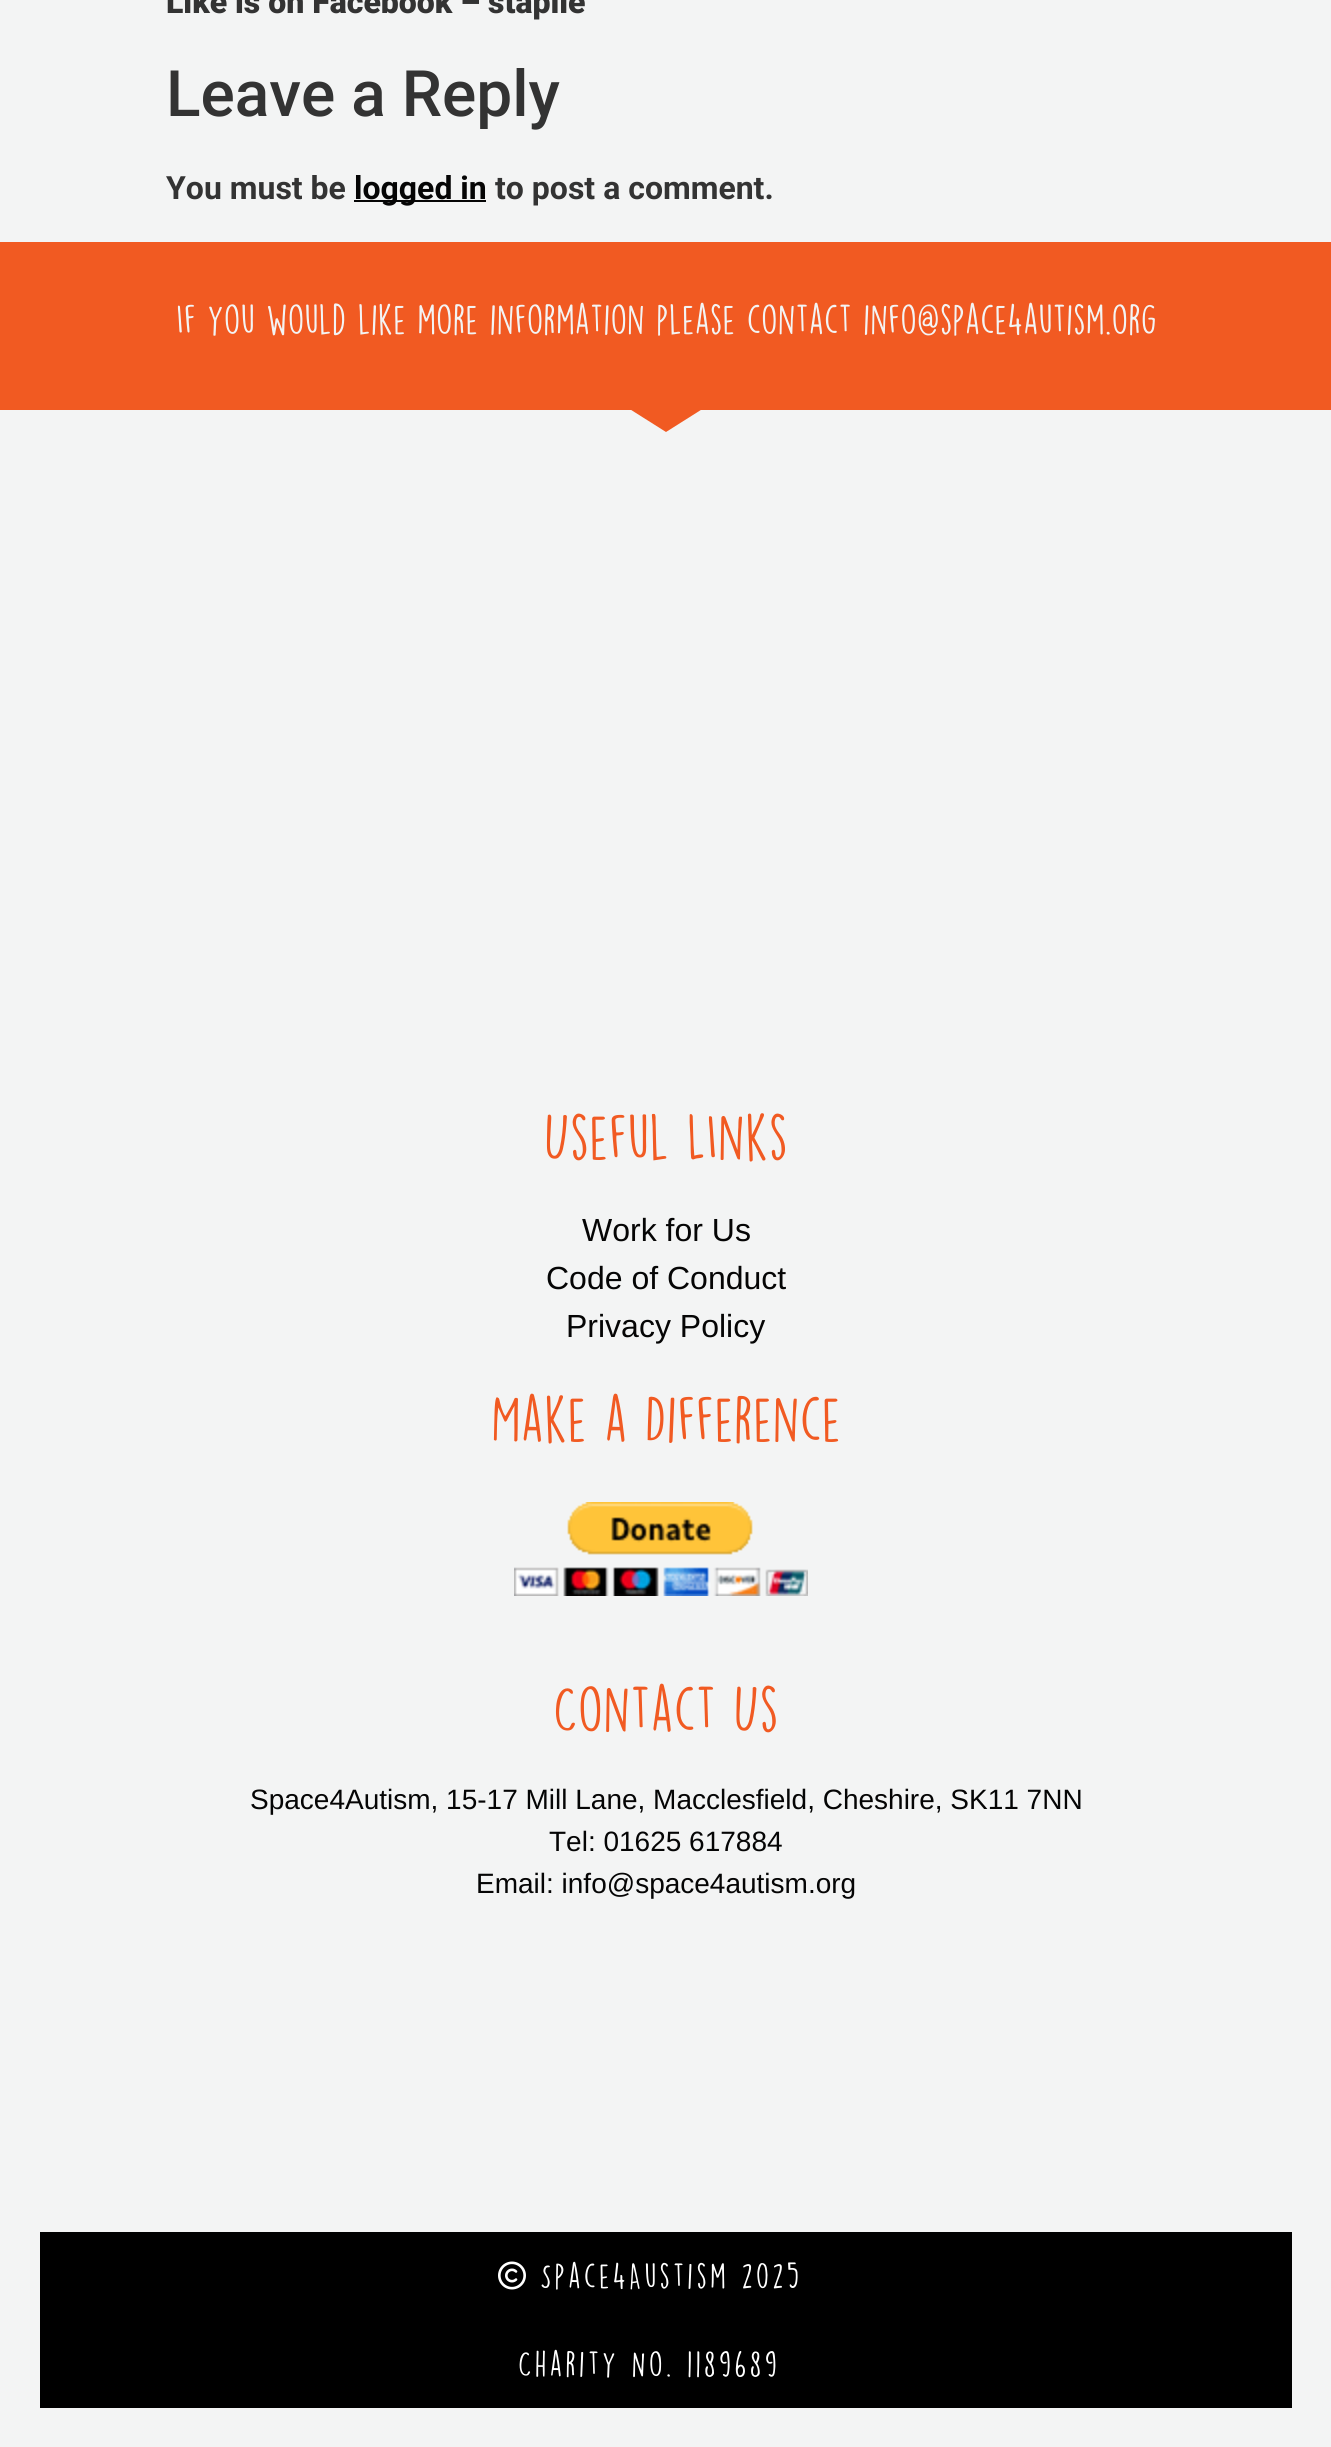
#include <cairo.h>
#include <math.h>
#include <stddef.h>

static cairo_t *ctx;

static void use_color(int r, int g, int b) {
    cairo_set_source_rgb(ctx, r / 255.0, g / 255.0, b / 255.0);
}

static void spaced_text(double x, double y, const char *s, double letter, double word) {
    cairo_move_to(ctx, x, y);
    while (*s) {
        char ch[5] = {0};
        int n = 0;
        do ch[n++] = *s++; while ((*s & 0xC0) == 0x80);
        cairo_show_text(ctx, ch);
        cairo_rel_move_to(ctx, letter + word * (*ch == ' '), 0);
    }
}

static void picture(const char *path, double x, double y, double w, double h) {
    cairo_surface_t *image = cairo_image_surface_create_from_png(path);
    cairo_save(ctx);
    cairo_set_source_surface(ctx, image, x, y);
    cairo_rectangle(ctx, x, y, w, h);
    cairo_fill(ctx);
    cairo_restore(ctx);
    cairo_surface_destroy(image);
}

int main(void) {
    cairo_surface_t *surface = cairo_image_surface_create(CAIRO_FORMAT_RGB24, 1331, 2447);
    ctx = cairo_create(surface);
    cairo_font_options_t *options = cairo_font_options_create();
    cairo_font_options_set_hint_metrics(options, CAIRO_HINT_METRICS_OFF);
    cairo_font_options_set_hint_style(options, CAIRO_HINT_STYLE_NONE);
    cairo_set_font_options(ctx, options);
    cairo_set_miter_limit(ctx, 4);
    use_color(243, 244, 244);
    cairo_paint(ctx);
    cairo_select_font_face(ctx, "Roboto Black", CAIRO_FONT_SLANT_NORMAL, CAIRO_FONT_WEIGHT_NORMAL);
    cairo_set_font_size(ctx, 32);
    use_color(51, 51, 51);
    cairo_move_to(ctx, 166, 13);
    cairo_show_text(ctx, "Like is on Facebook – staplle");
    cairo_select_font_face(ctx, "Roboto Medium", CAIRO_FONT_SLANT_NORMAL, CAIRO_FONT_WEIGHT_NORMAL);
    cairo_set_font_size(ctx, 64);
    cairo_move_to(ctx, 166, 116);
    cairo_show_text(ctx, "Leave a Reply");
    cairo_select_font_face(ctx, "Roboto", CAIRO_FONT_SLANT_NORMAL, CAIRO_FONT_WEIGHT_BOLD);
    cairo_set_font_size(ctx, 32);
    cairo_move_to(ctx, 166, 199);
    cairo_show_text(ctx, "You must be");
    use_color(5, 5, 5);
    cairo_rectangle(ctx, 354, 200, 132, 2);
    cairo_fill(ctx);
    cairo_move_to(ctx, 354, 199);
    cairo_show_text(ctx, "logged in");
    use_color(51, 51, 51);
    cairo_move_to(ctx, 495, 199);
    cairo_show_text(ctx, "to post a comment.");
    use_color(241, 90, 34);
    cairo_rectangle(ctx, 0, 242, 1331, 168);
    cairo_fill(ctx);
    cairo_select_font_face(ctx, "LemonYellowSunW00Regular", CAIRO_FONT_SLANT_NORMAL, CAIRO_FONT_WEIGHT_NORMAL);
    cairo_set_font_size(ctx, 38);
    use_color(243, 244, 244);
    cairo_move_to(ctx, 176, 335);
    cairo_show_text(ctx, "If you would like more information please contact info@space4autism.org");
    use_color(241, 90, 34);
    cairo_new_path(ctx);
    cairo_move_to(ctx, 666, 432);
    cairo_line_to(ctx, 628, 408);
    cairo_line_to(ctx, 704, 408);
    cairo_close_path(ctx);
    cairo_fill(ctx);
    cairo_set_font_size(ctx, 58);
    cairo_move_to(ctx, 544, 1161);
    cairo_show_text(ctx, "Useful LInks");
    cairo_select_font_face(ctx, "Liberation Sans", CAIRO_FONT_SLANT_NORMAL, CAIRO_FONT_WEIGHT_NORMAL);
    cairo_set_font_size(ctx, 32);
    use_color(5, 5, 5);
    cairo_move_to(ctx, 582, 1241);
    cairo_show_text(ctx, "Work for Us");
    cairo_move_to(ctx, 546, 1289);
    cairo_show_text(ctx, "Code of Conduct");
    cairo_move_to(ctx, 566, 1337);
    cairo_show_text(ctx, "Privacy Policy");
    cairo_select_font_face(ctx, "LemonYellowSunW00Regular", CAIRO_FONT_SLANT_NORMAL, CAIRO_FONT_WEIGHT_NORMAL);
    cairo_set_font_size(ctx, 58);
    use_color(241, 90, 34);
    cairo_move_to(ctx, 491, 1443);
    cairo_show_text(ctx, "Make a Difference");
    picture("img1.png", 514, 1502, 294, 94);
    cairo_move_to(ctx, 553, 1733);
    cairo_show_text(ctx, "Contact Us");
    cairo_select_font_face(ctx, "Liberation Sans", CAIRO_FONT_SLANT_NORMAL, CAIRO_FONT_WEIGHT_NORMAL);
    cairo_set_font_size(ctx, 28);
    use_color(5, 5, 5);
    cairo_move_to(ctx, 250, 1809);
    cairo_show_text(ctx, "Space4Autism, 15-17 Mill Lane, Macclesfield, Cheshire, SK11 7NN");
    cairo_move_to(ctx, 549, 1851);
    cairo_show_text(ctx, "Tel: 01625 617884");
    cairo_move_to(ctx, 476, 1893);
    cairo_show_text(ctx, "Email: info@space4autism.org");
    use_color(0, 0, 0);
    cairo_rectangle(ctx, 40, 2232, 1252, 176);
    cairo_fill(ctx);
    picture("img2.png", 498, 2261, 28, 29);
    cairo_select_font_face(ctx, "LemonYellowSunW00Regular", CAIRO_FONT_SLANT_NORMAL, CAIRO_FONT_WEIGHT_NORMAL);
    cairo_set_font_size(ctx, 32);
    use_color(255, 255, 255);
    spaced_text(540, 2289, "Space4Austism 2025", 3, 0);
    spaced_text(518, 2377, "Charity No. 1189689", 3, 0);
    cairo_surface_write_to_png(surface, "result.png");
    cairo_font_options_destroy(options);
    cairo_destroy(ctx);
    cairo_surface_destroy(surface);
    return 0;
}
